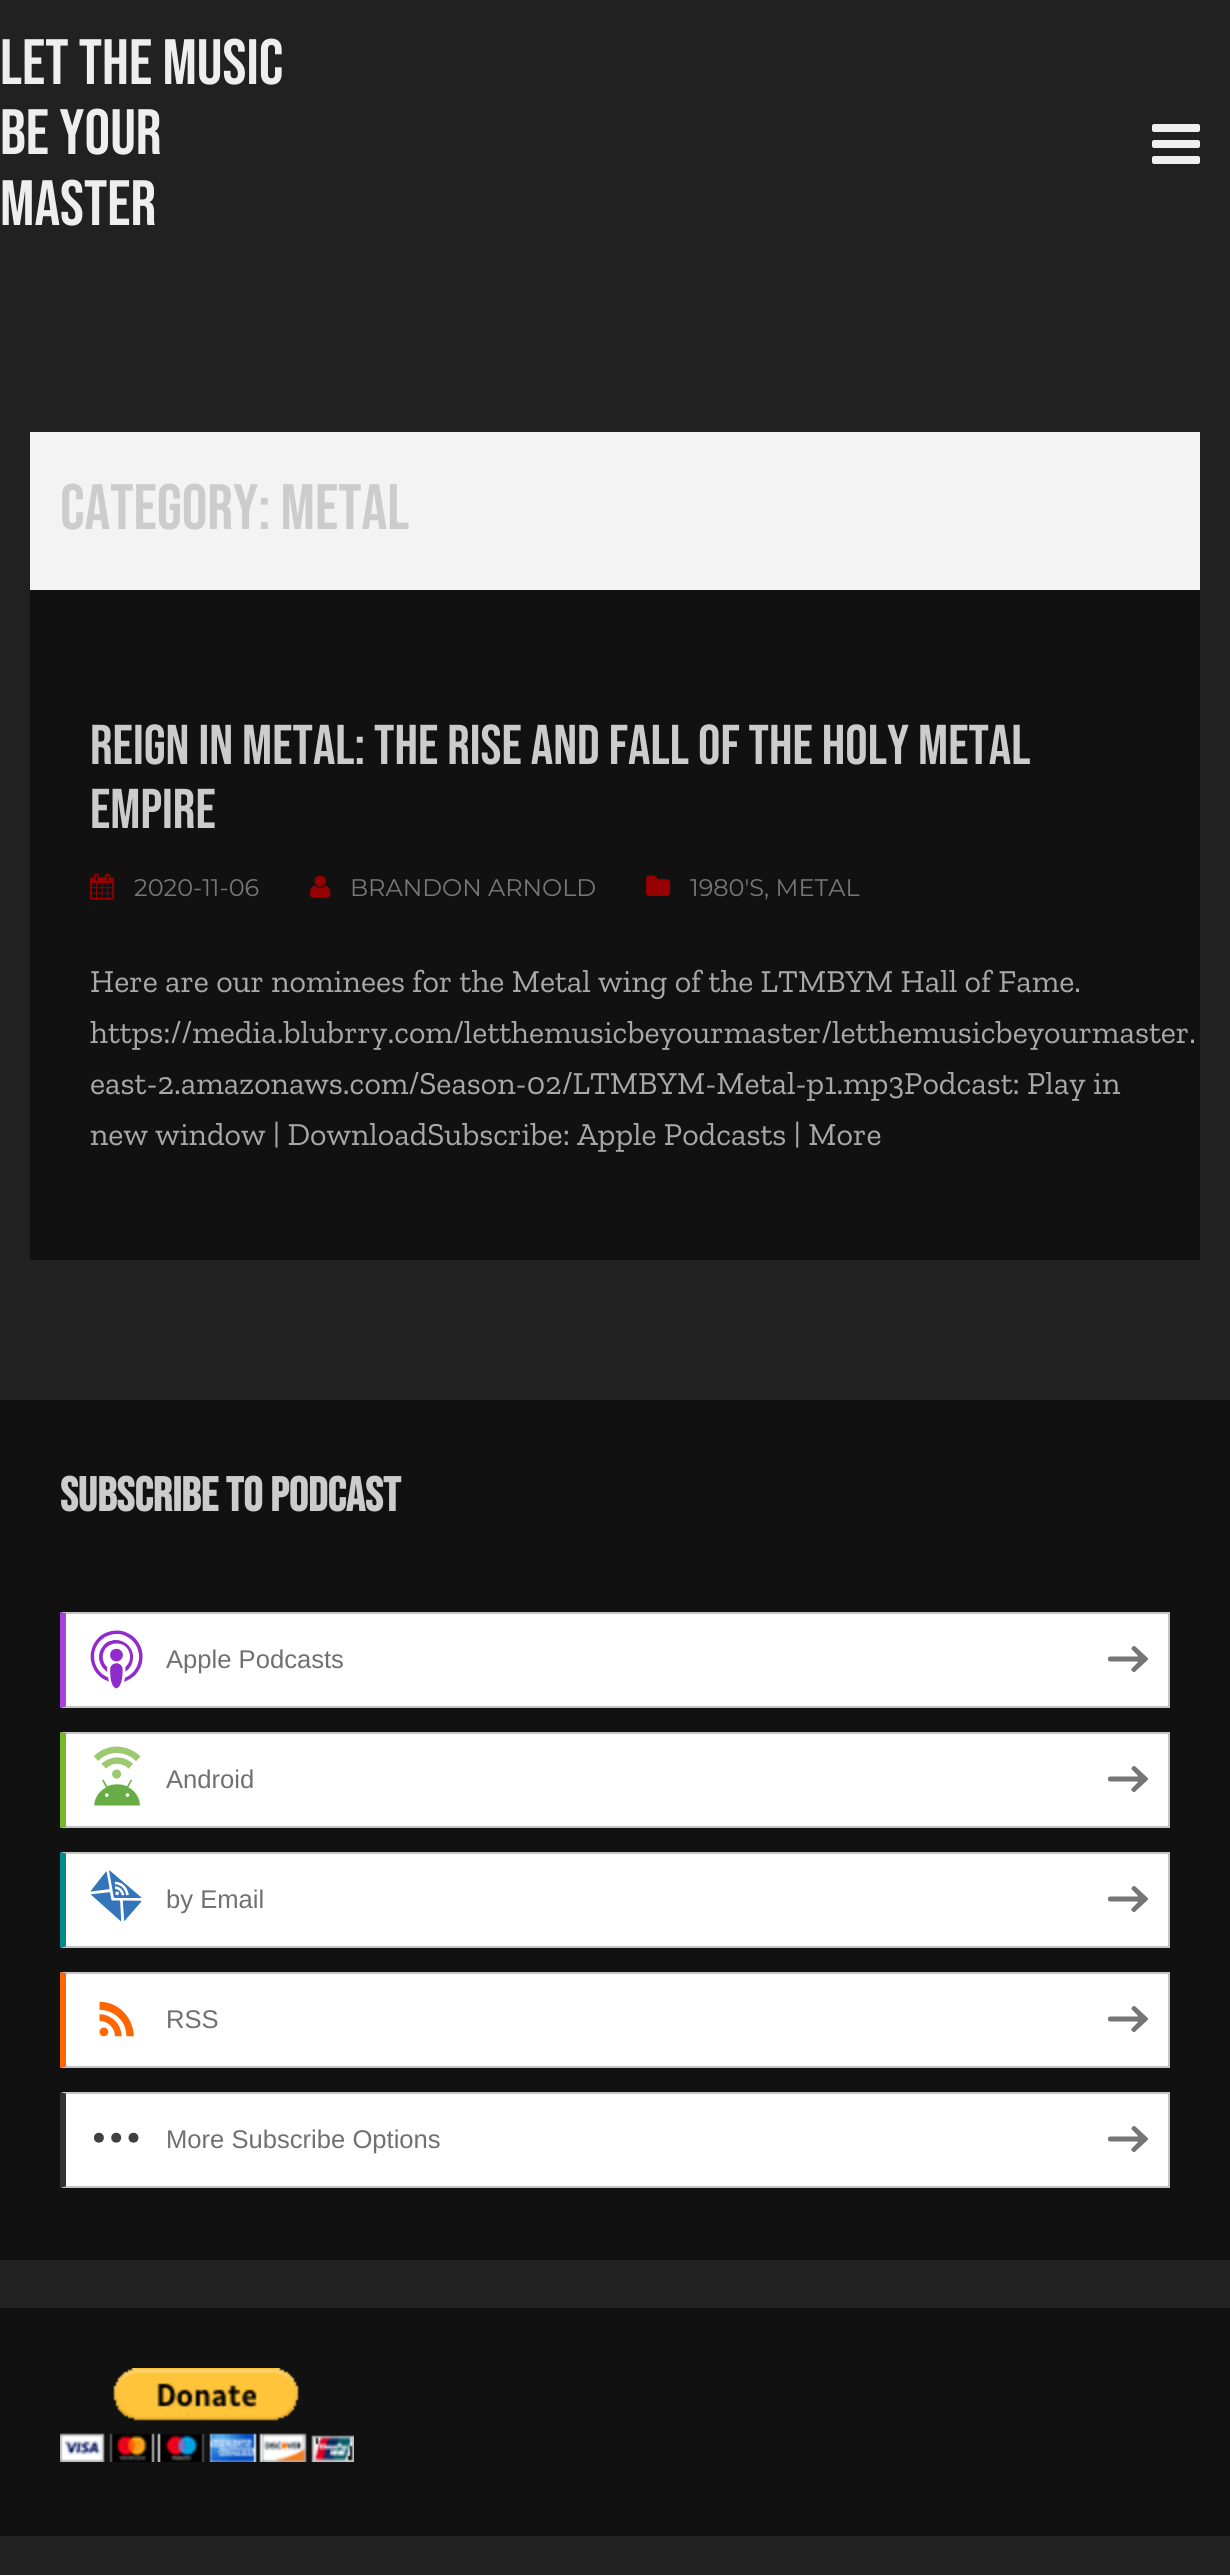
#include <cairo.h>
#include <math.h>
#include <stddef.h>

static cairo_t *ctx;

static void use_color(int r, int g, int b) {
    cairo_set_source_rgb(ctx, r / 255.0, g / 255.0, b / 255.0);
}

static void picture(const char *path, double x, double y, double w, double h) {
    cairo_surface_t *image = cairo_image_surface_create_from_png(path);
    cairo_save(ctx);
    cairo_set_source_surface(ctx, image, x, y);
    cairo_rectangle(ctx, x, y, w, h);
    cairo_fill(ctx);
    cairo_restore(ctx);
    cairo_surface_destroy(image);
}

int main(void) {
    cairo_surface_t *surface = cairo_image_surface_create(CAIRO_FORMAT_RGB24, 1230, 2575);
    ctx = cairo_create(surface);
    cairo_font_options_t *options = cairo_font_options_create();
    cairo_font_options_set_hint_metrics(options, CAIRO_HINT_METRICS_OFF);
    cairo_font_options_set_hint_style(options, CAIRO_HINT_STYLE_NONE);
    cairo_set_font_options(ctx, options);
    cairo_set_miter_limit(ctx, 4);
    use_color(33, 33, 33);
    cairo_paint(ctx);
    cairo_select_font_face(ctx, "Bebas Neue", CAIRO_FONT_SLANT_NORMAL, CAIRO_FONT_WEIGHT_NORMAL);
    cairo_set_font_size(ctx, 64);
    use_color(238, 238, 238);
    cairo_move_to(ctx, 0, 84);
    cairo_show_text(ctx, "Let the Music");
    cairo_move_to(ctx, 0, 154);
    cairo_show_text(ctx, "Be Your");
    cairo_move_to(ctx, 0, 225);
    cairo_show_text(ctx, "Master");
    picture("img1.png", 1152, 124, 48, 40);
    use_color(17, 17, 17);
    cairo_rectangle(ctx, 30, 590, 1170, 670);
    cairo_fill(ctx);
    use_color(243, 243, 243);
    cairo_rectangle(ctx, 30, 432, 1170, 158);
    cairo_fill(ctx);
    use_color(204, 204, 204);
    cairo_move_to(ctx, 60, 529);
    cairo_show_text(ctx, "Category: Metal");
    cairo_set_font_size(ctx, 56);
    cairo_move_to(ctx, 90, 764);
    cairo_show_text(ctx, "Reign in Metal: The Rise and Fall of the Holy Metal");
    cairo_move_to(ctx, 90, 828);
    cairo_show_text(ctx, "Empire");
    picture("img2.png", 90, 873, 25, 27);
    cairo_select_font_face(ctx, "Montserrat", CAIRO_FONT_SLANT_NORMAL, CAIRO_FONT_WEIGHT_NORMAL);
    cairo_set_font_size(ctx, 24);
    use_color(119, 119, 119);
    cairo_move_to(ctx, 134, 896);
    cairo_show_text(ctx, "2020-11-06");
    picture("img3.png", 310, 875, 21, 23);
    cairo_move_to(ctx, 350, 896);
    cairo_show_text(ctx, "BRANDON ARNOLD");
    picture("img4.png", 646, 875, 25, 21);
    cairo_move_to(ctx, 690, 896);
    cairo_show_text(ctx, "1980'S, METAL");
    cairo_select_font_face(ctx, "Zilla Slab", CAIRO_FONT_SLANT_NORMAL, CAIRO_FONT_WEIGHT_NORMAL);
    cairo_set_font_size(ctx, 32);
    use_color(168, 168, 168);
    cairo_move_to(ctx, 90, 992);
    cairo_show_text(ctx, "Here are our nominees for the Metal wing of the LTMBYM Hall of Fame.");
    cairo_move_to(ctx, 90, 1043);
    cairo_show_text(ctx, "https://media.blubrry.com/letthemusicbeyourmaster/letthemusicbeyourmaster.");
    cairo_move_to(ctx, 90, 1094);
    cairo_show_text(ctx, "east-2.amazonaws.com/Season-02/LTMBYM-Metal-p1.mp3Podcast: Play in");
    cairo_move_to(ctx, 90, 1145);
    cairo_show_text(ctx, "new window | DownloadSubscribe: Apple Podcasts | More");
    use_color(17, 17, 17);
    cairo_rectangle(ctx, 0, 1400, 1230, 860);
    cairo_fill(ctx);
    cairo_select_font_face(ctx, "Bebas Neue", CAIRO_FONT_SLANT_NORMAL, CAIRO_FONT_WEIGHT_BOLD);
    cairo_set_font_size(ctx, 48);
    use_color(204, 204, 204);
    cairo_move_to(ctx, 60, 1511);
    cairo_show_text(ctx, "SUBSCRIBE TO PODCAST");
    use_color(255, 255, 255);
    cairo_rectangle(ctx, 66, 1614, 1102, 92);
    cairo_fill(ctx);
    use_color(196, 196, 196);
    cairo_new_path(ctx);
    cairo_move_to(ctx, 60, 1612);
    cairo_line_to(ctx, 1170, 1612);
    cairo_line_to(ctx, 1168, 1614);
    cairo_line_to(ctx, 66, 1614);
    cairo_close_path(ctx);
    cairo_fill(ctx);
    cairo_rectangle(ctx, 1168, 1612, 2, 96);
    cairo_fill(ctx);
    cairo_new_path(ctx);
    cairo_move_to(ctx, 1170, 1708);
    cairo_line_to(ctx, 60, 1708);
    cairo_line_to(ctx, 66, 1706);
    cairo_line_to(ctx, 1168, 1706);
    cairo_close_path(ctx);
    cairo_fill(ctx);
    use_color(171, 66, 223);
    cairo_new_path(ctx);
    cairo_move_to(ctx, 60, 1708);
    cairo_line_to(ctx, 60, 1612);
    cairo_line_to(ctx, 66, 1614);
    cairo_line_to(ctx, 66, 1706);
    cairo_close_path(ctx);
    cairo_fill(ctx);
    picture("img5.png", 90, 1630, 53, 59);
    cairo_select_font_face(ctx, "Liberation Sans", CAIRO_FONT_SLANT_NORMAL, CAIRO_FONT_WEIGHT_NORMAL);
    cairo_set_font_size(ctx, 25.6);
    use_color(112, 112, 112);
    cairo_move_to(ctx, 166, 1668);
    cairo_show_text(ctx, "Apple Podcasts");
    picture("img6.png", 1108, 1646, 40, 26);
    use_color(255, 255, 255);
    cairo_rectangle(ctx, 66, 1734, 1102, 92);
    cairo_fill(ctx);
    use_color(196, 196, 196);
    cairo_new_path(ctx);
    cairo_move_to(ctx, 60, 1732);
    cairo_line_to(ctx, 1170, 1732);
    cairo_line_to(ctx, 1168, 1734);
    cairo_line_to(ctx, 66, 1734);
    cairo_close_path(ctx);
    cairo_fill(ctx);
    cairo_rectangle(ctx, 1168, 1732, 2, 96);
    cairo_fill(ctx);
    cairo_new_path(ctx);
    cairo_move_to(ctx, 1170, 1828);
    cairo_line_to(ctx, 60, 1828);
    cairo_line_to(ctx, 66, 1826);
    cairo_line_to(ctx, 1168, 1826);
    cairo_close_path(ctx);
    cairo_fill(ctx);
    use_color(117, 186, 38);
    cairo_new_path(ctx);
    cairo_move_to(ctx, 60, 1828);
    cairo_line_to(ctx, 60, 1732);
    cairo_line_to(ctx, 66, 1734);
    cairo_line_to(ctx, 66, 1826);
    cairo_close_path(ctx);
    cairo_fill(ctx);
    picture("img7.png", 93, 1746, 48, 60);
    use_color(112, 112, 112);
    cairo_move_to(ctx, 166, 1788);
    cairo_show_text(ctx, "Android");
    picture("img6.png", 1108, 1766, 40, 26);
    use_color(255, 255, 255);
    cairo_rectangle(ctx, 66, 1854, 1102, 92);
    cairo_fill(ctx);
    use_color(196, 196, 196);
    cairo_new_path(ctx);
    cairo_move_to(ctx, 60, 1852);
    cairo_line_to(ctx, 1170, 1852);
    cairo_line_to(ctx, 1168, 1854);
    cairo_line_to(ctx, 66, 1854);
    cairo_close_path(ctx);
    cairo_fill(ctx);
    cairo_rectangle(ctx, 1168, 1852, 2, 96);
    cairo_fill(ctx);
    cairo_new_path(ctx);
    cairo_move_to(ctx, 1170, 1948);
    cairo_line_to(ctx, 60, 1948);
    cairo_line_to(ctx, 66, 1946);
    cairo_line_to(ctx, 1168, 1946);
    cairo_close_path(ctx);
    cairo_fill(ctx);
    use_color(1, 140, 139);
    cairo_new_path(ctx);
    cairo_move_to(ctx, 60, 1948);
    cairo_line_to(ctx, 60, 1852);
    cairo_line_to(ctx, 66, 1854);
    cairo_line_to(ctx, 66, 1946);
    cairo_close_path(ctx);
    cairo_fill(ctx);
    picture("img8.png", 90, 1870, 52, 52);
    use_color(112, 112, 112);
    cairo_move_to(ctx, 166, 1908);
    cairo_show_text(ctx, "by Email");
    picture("img6.png", 1108, 1886, 40, 26);
    use_color(255, 255, 255);
    cairo_rectangle(ctx, 66, 1974, 1102, 92);
    cairo_fill(ctx);
    use_color(196, 196, 196);
    cairo_new_path(ctx);
    cairo_move_to(ctx, 60, 1972);
    cairo_line_to(ctx, 1170, 1972);
    cairo_line_to(ctx, 1168, 1974);
    cairo_line_to(ctx, 66, 1974);
    cairo_close_path(ctx);
    cairo_fill(ctx);
    cairo_rectangle(ctx, 1168, 1972, 2, 96);
    cairo_fill(ctx);
    cairo_new_path(ctx);
    cairo_move_to(ctx, 1170, 2068);
    cairo_line_to(ctx, 60, 2068);
    cairo_line_to(ctx, 66, 2066);
    cairo_line_to(ctx, 1168, 2066);
    cairo_close_path(ctx);
    cairo_fill(ctx);
    use_color(255, 102, 0);
    cairo_new_path(ctx);
    cairo_move_to(ctx, 60, 2068);
    cairo_line_to(ctx, 60, 1972);
    cairo_line_to(ctx, 66, 1974);
    cairo_line_to(ctx, 66, 2066);
    cairo_close_path(ctx);
    cairo_fill(ctx);
    picture("img9.png", 99, 2001, 35, 36);
    use_color(112, 112, 112);
    cairo_move_to(ctx, 166, 2028);
    cairo_show_text(ctx, "RSS");
    picture("img6.png", 1108, 2006, 40, 26);
    use_color(255, 255, 255);
    cairo_rectangle(ctx, 66, 2094, 1102, 92);
    cairo_fill(ctx);
    use_color(196, 196, 196);
    cairo_new_path(ctx);
    cairo_move_to(ctx, 60, 2092);
    cairo_line_to(ctx, 1170, 2092);
    cairo_line_to(ctx, 1168, 2094);
    cairo_line_to(ctx, 66, 2094);
    cairo_close_path(ctx);
    cairo_fill(ctx);
    cairo_rectangle(ctx, 1168, 2092, 2, 96);
    cairo_fill(ctx);
    cairo_new_path(ctx);
    cairo_move_to(ctx, 1170, 2188);
    cairo_line_to(ctx, 60, 2188);
    cairo_line_to(ctx, 66, 2186);
    cairo_line_to(ctx, 1168, 2186);
    cairo_close_path(ctx);
    cairo_fill(ctx);
    use_color(51, 51, 51);
    cairo_new_path(ctx);
    cairo_move_to(ctx, 60, 2188);
    cairo_line_to(ctx, 60, 2092);
    cairo_line_to(ctx, 66, 2094);
    cairo_line_to(ctx, 66, 2186);
    cairo_close_path(ctx);
    cairo_fill(ctx);
    picture("img10.png", 93, 2132, 46, 11);
    use_color(112, 112, 112);
    cairo_move_to(ctx, 166, 2148);
    cairo_show_text(ctx, "More Subscribe Options");
    picture("img6.png", 1108, 2126, 40, 26);
    use_color(17, 17, 17);
    cairo_rectangle(ctx, 0, 2308, 1230, 228);
    cairo_fill(ctx);
    picture("img11.png", 60, 2368, 294, 94);
    cairo_surface_write_to_png(surface, "result.png");
    cairo_font_options_destroy(options);
    cairo_destroy(ctx);
    cairo_surface_destroy(surface);
    return 0;
}
